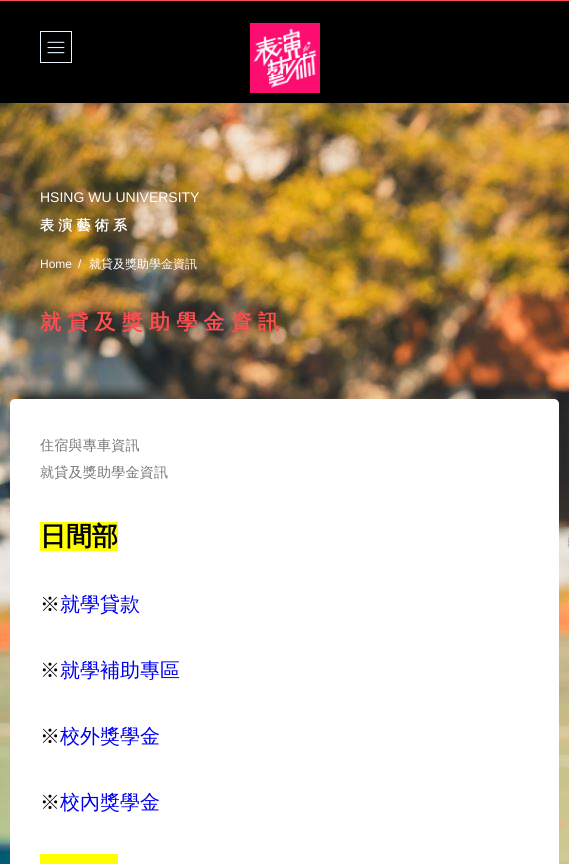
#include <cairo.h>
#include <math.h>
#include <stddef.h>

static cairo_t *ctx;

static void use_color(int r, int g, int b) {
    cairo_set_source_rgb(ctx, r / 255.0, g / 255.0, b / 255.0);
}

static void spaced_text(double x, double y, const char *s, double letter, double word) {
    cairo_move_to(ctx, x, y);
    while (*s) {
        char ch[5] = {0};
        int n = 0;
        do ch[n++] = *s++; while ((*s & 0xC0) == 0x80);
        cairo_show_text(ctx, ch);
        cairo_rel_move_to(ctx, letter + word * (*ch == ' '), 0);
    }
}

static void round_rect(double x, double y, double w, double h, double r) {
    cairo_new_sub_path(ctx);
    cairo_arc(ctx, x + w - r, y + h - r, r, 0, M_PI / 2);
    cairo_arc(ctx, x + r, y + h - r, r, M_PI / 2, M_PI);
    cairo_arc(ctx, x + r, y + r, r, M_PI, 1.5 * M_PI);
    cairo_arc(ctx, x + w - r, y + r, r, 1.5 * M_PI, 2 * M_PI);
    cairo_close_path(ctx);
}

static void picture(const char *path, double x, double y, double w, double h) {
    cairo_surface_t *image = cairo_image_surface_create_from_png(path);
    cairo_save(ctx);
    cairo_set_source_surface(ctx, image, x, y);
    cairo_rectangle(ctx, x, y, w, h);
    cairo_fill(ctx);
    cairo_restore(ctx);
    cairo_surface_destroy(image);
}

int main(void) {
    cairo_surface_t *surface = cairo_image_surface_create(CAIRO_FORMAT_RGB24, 569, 864);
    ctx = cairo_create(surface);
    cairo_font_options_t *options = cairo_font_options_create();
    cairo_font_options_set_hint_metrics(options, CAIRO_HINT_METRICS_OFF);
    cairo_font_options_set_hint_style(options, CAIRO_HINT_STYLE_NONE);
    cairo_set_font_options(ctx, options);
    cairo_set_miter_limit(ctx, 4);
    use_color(255, 255, 255);
    cairo_paint(ctx);
    picture("img1.png", 0, 103, 569, 761);
    use_color(0, 0, 0);
    cairo_rectangle(ctx, 0, 1, 569, 102);
    cairo_fill(ctx);
    use_color(255, 77, 77);
    cairo_rectangle(ctx, 0, 0, 569, 1);
    cairo_fill(ctx);
    cairo_rectangle(ctx, 40.5, 31.5, 31, 31);
    use_color(229, 244, 255);
    cairo_set_line_width(ctx, 1);
    cairo_stroke(ctx);
    picture("img2.png", 47, 41, 18, 13);
    picture("img3.png", 250, 23, 70, 70);
    cairo_select_font_face(ctx, "Liberation Sans", CAIRO_FONT_SLANT_NORMAL, CAIRO_FONT_WEIGHT_NORMAL);
    cairo_set_font_size(ctx, 14);
    use_color(255, 255, 255);
    cairo_move_to(ctx, 40, 202);
    cairo_show_text(ctx, "HSING WU UNIVERSITY");
    cairo_select_font_face(ctx, "WenQuanYi Zen Hei", CAIRO_FONT_SLANT_NORMAL, CAIRO_FONT_WEIGHT_BOLD);
    spaced_text(40, 230, "表演藝術系", 4.25, 0);
    cairo_select_font_face(ctx, "Liberation Sans", CAIRO_FONT_SLANT_NORMAL, CAIRO_FONT_WEIGHT_NORMAL);
    cairo_set_font_size(ctx, 12);
    cairo_move_to(ctx, 40, 268);
    cairo_show_text(ctx, "Home");
    cairo_move_to(ctx, 78, 268);
    cairo_show_text(ctx, "/");
    cairo_select_font_face(ctx, "WenQuanYi Zen Hei Medium", CAIRO_FONT_SLANT_NORMAL, CAIRO_FONT_WEIGHT_NORMAL);
    cairo_move_to(ctx, 89, 268);
    cairo_show_text(ctx, "就貸及獎助學金資訊");
    cairo_select_font_face(ctx, "WenQuanYi Zen Hei", CAIRO_FONT_SLANT_NORMAL, CAIRO_FONT_WEIGHT_BOLD);
    cairo_set_font_size(ctx, 21);
    use_color(255, 77, 77);
    spaced_text(40, 329, "就貸及獎助學金資訊", 6.25, 0);
    use_color(255, 255, 255);
    round_rect(10, 399, 549, 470, 5);
    cairo_fill(ctx);
    cairo_select_font_face(ctx, "WenQuanYi Zen Hei Medium", CAIRO_FONT_SLANT_NORMAL, CAIRO_FONT_WEIGHT_NORMAL);
    cairo_set_font_size(ctx, 14);
    use_color(119, 119, 119);
    spaced_text(40, 450, "住宿與專車資訊", 0.25, 0);
    spaced_text(40, 477, "就貸及獎助學金資訊", 0.25, 0);
    use_color(255, 255, 0);
    cairo_rectangle(ctx, 40, 522, 78, 29);
    cairo_fill(ctx);
    cairo_select_font_face(ctx, "WenQuanYi Zen Hei", CAIRO_FONT_SLANT_NORMAL, CAIRO_FONT_WEIGHT_BOLD);
    cairo_set_font_size(ctx, 26);
    use_color(0, 0, 0);
    cairo_move_to(ctx, 40, 545);
    cairo_show_text(ctx, "日間部");
    cairo_select_font_face(ctx, "WenQuanYi Zen Hei Medium", CAIRO_FONT_SLANT_NORMAL, CAIRO_FONT_WEIGHT_NORMAL);
    cairo_set_font_size(ctx, 20);
    cairo_move_to(ctx, 40, 611);
    cairo_show_text(ctx, "※");
    use_color(0, 0, 238);
    cairo_move_to(ctx, 60, 611);
    cairo_show_text(ctx, "就學貸款");
    use_color(0, 0, 0);
    cairo_move_to(ctx, 40, 677);
    cairo_show_text(ctx, "※");
    use_color(0, 0, 238);
    cairo_move_to(ctx, 60, 677);
    cairo_show_text(ctx, "就學補助專區");
    use_color(0, 0, 0);
    cairo_move_to(ctx, 40, 743);
    cairo_show_text(ctx, "※");
    use_color(0, 0, 238);
    cairo_move_to(ctx, 60, 743);
    cairo_show_text(ctx, "校外獎學金");
    use_color(0, 0, 0);
    cairo_move_to(ctx, 40, 809);
    cairo_show_text(ctx, "※");
    use_color(0, 0, 238);
    cairo_move_to(ctx, 60, 809);
    cairo_show_text(ctx, "校內獎學金");
    use_color(255, 255, 0);
    cairo_rectangle(ctx, 40, 854, 78, 10);
    cairo_fill(ctx);
    cairo_surface_write_to_png(surface, "result.png");
    cairo_font_options_destroy(options);
    cairo_destroy(ctx);
    cairo_surface_destroy(surface);
    return 0;
}
